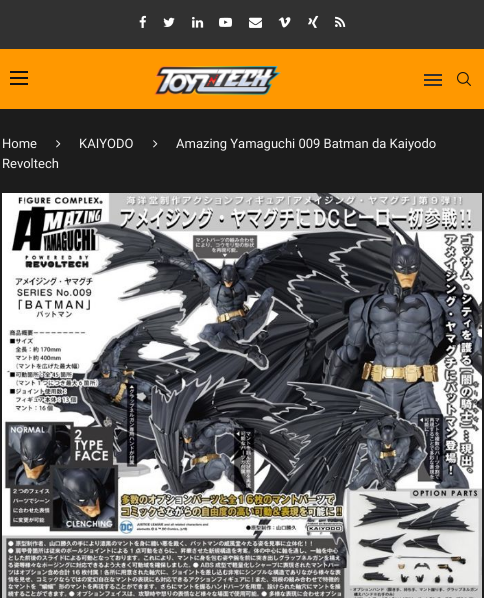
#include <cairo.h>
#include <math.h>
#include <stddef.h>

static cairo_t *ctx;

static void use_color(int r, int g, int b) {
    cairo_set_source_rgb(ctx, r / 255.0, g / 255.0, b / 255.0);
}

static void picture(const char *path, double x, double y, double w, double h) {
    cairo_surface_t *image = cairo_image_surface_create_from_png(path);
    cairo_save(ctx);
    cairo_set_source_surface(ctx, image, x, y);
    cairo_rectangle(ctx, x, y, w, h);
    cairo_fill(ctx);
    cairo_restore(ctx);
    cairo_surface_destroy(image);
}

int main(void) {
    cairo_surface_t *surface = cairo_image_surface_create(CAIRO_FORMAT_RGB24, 484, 598);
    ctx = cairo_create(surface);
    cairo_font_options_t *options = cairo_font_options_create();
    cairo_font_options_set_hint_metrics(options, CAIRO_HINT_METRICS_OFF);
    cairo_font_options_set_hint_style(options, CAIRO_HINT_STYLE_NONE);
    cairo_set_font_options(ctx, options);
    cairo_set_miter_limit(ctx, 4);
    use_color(28, 28, 28);
    cairo_paint(ctx);
    use_color(49, 49, 49);
    cairo_rectangle(ctx, 0, 0, 484, 49);
    cairo_fill(ctx);
    picture("img1.png", 139, 15, 7, 13);
    picture("img2.png", 163, 17, 12, 10);
    picture("img3.png", 192, 16, 12, 12);
    picture("img4.png", 219, 17, 13, 10);
    picture("img5.png", 249, 17, 13, 11);
    picture("img6.png", 278, 17, 13, 11);
    picture("img7.png", 308, 15, 11, 13);
    picture("img8.png", 335, 16, 11, 11);
    use_color(255, 152, 0);
    cairo_rectangle(ctx, 0, 49, 484, 60);
    cairo_fill(ctx);
    use_color(17, 17, 17);
    cairo_rectangle(ctx, 10, 71, 18, 2);
    cairo_fill(ctx);
    cairo_rectangle(ctx, 10, 77, 18, 2);
    cairo_fill(ctx);
    cairo_rectangle(ctx, 10, 83, 18, 2);
    cairo_fill(ctx);
    picture("img9.png", 154, 66, 127, 30);
    use_color(49, 49, 49);
    cairo_rectangle(ctx, 424, 74, 18, 2);
    cairo_fill(ctx);
    cairo_rectangle(ctx, 424, 84, 18, 2);
    cairo_fill(ctx);
    cairo_rectangle(ctx, 424, 79, 18, 2);
    cairo_fill(ctx);
    picture("img10.png", 457, 72, 14, 14);
    cairo_select_font_face(ctx, "Roboto", CAIRO_FONT_SLANT_NORMAL, CAIRO_FONT_WEIGHT_NORMAL);
    cairo_set_font_size(ctx, 13);
    use_color(244, 244, 244);
    cairo_move_to(ctx, 2, 148);
    cairo_show_text(ctx, "Home");
    picture("img11.png", 56, 140, 5, 8);
    cairo_move_to(ctx, 79, 148);
    cairo_show_text(ctx, "KAIYODO");
    picture("img11.png", 153, 140, 5, 8);
    cairo_move_to(ctx, 176, 148);
    cairo_show_text(ctx, "Amazing Yamaguchi 009 Batman da Kaiyodo");
    cairo_move_to(ctx, 2, 168);
    cairo_show_text(ctx, "Revoltech");
    picture("img12.png", 2, 193, 480, 405);
    cairo_surface_write_to_png(surface, "result.png");
    cairo_font_options_destroy(options);
    cairo_destroy(ctx);
    cairo_surface_destroy(surface);
    return 0;
}
